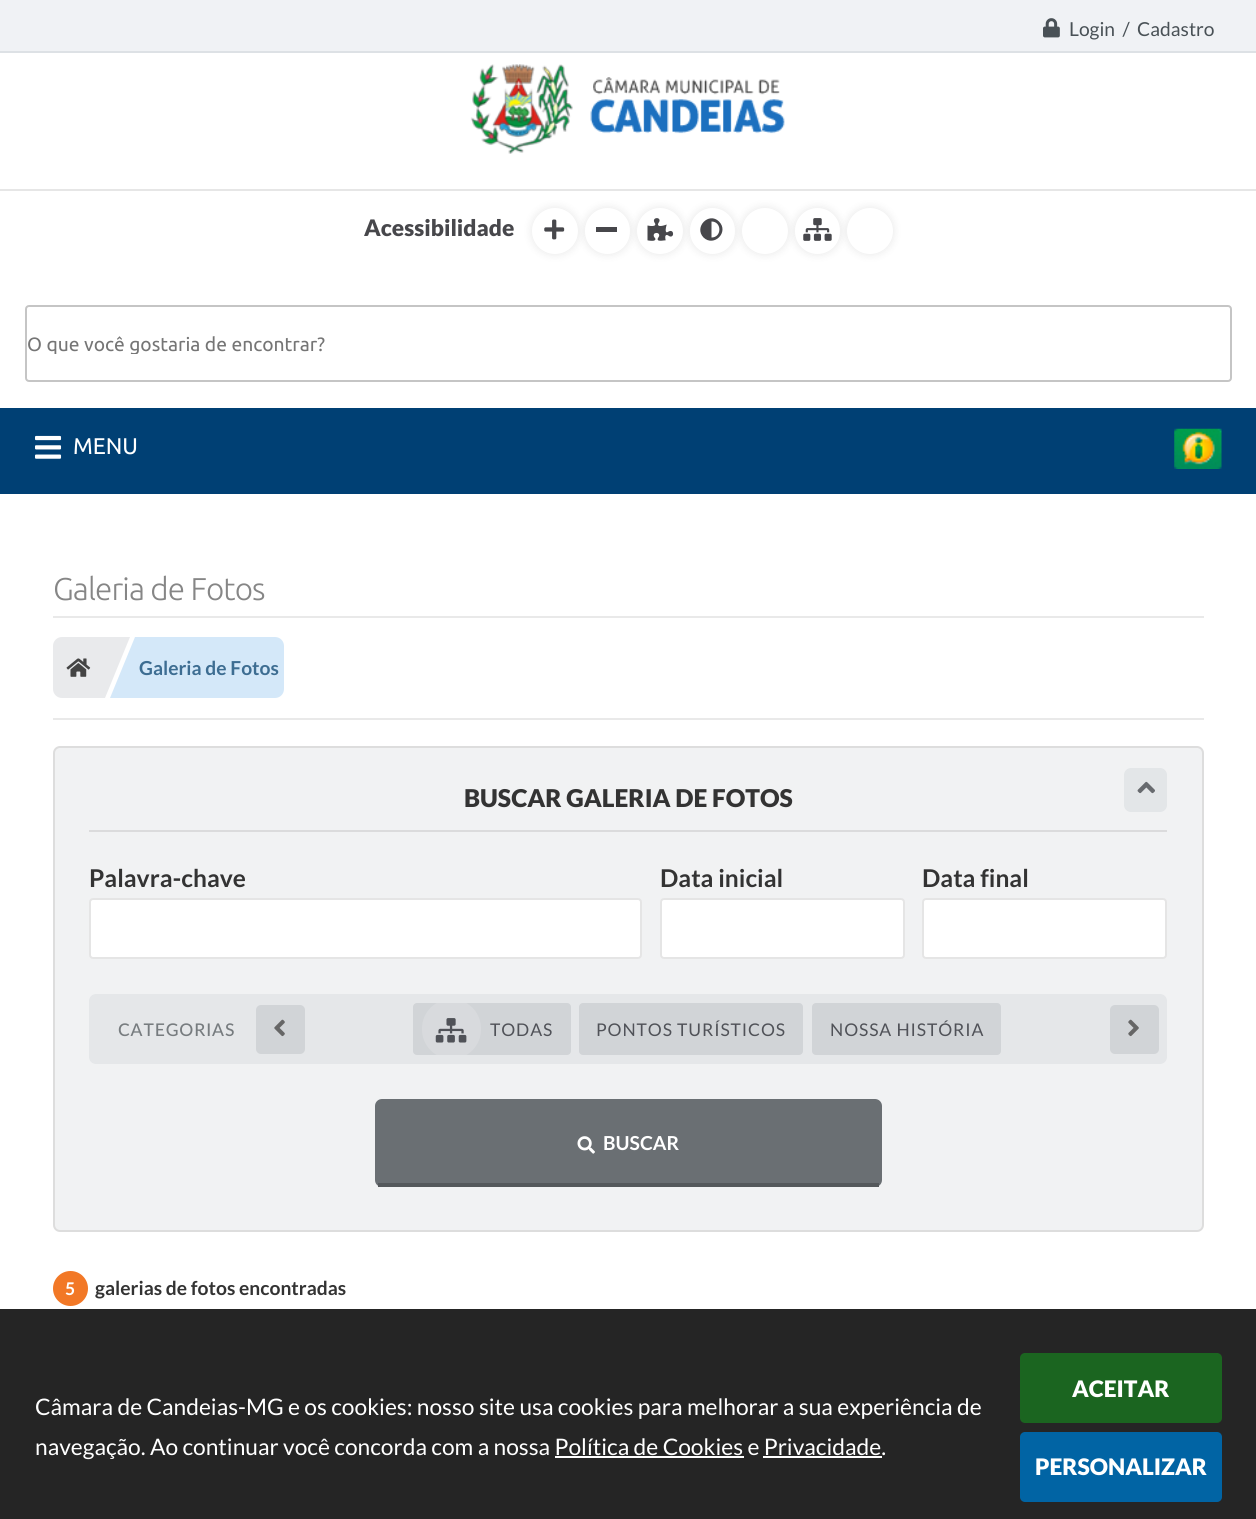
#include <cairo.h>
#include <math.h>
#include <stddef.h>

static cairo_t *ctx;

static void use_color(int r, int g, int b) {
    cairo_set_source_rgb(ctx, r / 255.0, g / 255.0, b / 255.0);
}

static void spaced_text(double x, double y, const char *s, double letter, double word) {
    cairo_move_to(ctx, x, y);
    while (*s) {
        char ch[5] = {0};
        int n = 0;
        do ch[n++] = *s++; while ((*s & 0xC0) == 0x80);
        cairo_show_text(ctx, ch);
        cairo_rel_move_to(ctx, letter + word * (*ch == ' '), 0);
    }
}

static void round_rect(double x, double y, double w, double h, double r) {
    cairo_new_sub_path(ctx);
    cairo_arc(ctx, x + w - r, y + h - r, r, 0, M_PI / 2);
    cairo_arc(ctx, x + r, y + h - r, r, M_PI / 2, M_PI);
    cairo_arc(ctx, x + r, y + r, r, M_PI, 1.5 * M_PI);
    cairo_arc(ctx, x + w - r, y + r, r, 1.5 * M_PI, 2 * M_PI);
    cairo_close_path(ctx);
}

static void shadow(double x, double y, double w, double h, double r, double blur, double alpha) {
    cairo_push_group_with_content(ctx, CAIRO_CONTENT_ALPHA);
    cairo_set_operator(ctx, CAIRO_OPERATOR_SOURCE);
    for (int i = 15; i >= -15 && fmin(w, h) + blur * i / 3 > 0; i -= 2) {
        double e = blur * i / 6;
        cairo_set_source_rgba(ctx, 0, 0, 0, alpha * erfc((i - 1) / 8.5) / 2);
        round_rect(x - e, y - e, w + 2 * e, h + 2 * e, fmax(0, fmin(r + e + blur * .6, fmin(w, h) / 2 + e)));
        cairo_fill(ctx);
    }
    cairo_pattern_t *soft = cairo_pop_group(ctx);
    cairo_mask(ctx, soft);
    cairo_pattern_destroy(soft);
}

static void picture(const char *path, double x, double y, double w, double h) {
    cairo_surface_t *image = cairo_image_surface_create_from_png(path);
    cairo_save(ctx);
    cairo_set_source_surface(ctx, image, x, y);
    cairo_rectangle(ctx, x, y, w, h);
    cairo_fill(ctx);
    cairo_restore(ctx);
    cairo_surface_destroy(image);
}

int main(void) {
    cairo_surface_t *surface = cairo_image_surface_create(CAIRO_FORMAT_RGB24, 1256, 1519);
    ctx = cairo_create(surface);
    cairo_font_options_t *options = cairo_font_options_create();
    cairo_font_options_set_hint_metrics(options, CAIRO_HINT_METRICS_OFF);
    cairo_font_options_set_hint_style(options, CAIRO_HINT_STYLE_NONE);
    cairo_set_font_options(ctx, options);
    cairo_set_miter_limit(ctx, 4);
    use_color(255, 255, 255);
    cairo_paint(ctx);
    use_color(37, 37, 37);
    cairo_rectangle(ctx, 0, 1309, 1256, 210);
    cairo_fill(ctx);
    use_color(240, 242, 245);
    cairo_rectangle(ctx, 0, 0, 1256, 51);
    cairo_fill(ctx);
    use_color(221, 225, 229);
    cairo_rectangle(ctx, 0, 51, 1256, 2);
    cairo_fill(ctx);
    picture("img1.png", 1043, 18, 17, 20);
    cairo_select_font_face(ctx, "Lato", CAIRO_FONT_SLANT_NORMAL, CAIRO_FONT_WEIGHT_NORMAL);
    cairo_set_font_size(ctx, 19.25);
    use_color(73, 81, 86);
    cairo_move_to(ctx, 1069, 36);
    cairo_show_text(ctx, "Login  /  Cadastro");
    cairo_set_font_size(ctx, 22.75);
    use_color(255, 255, 255);
    cairo_move_to(ctx, 35, 1415);
    cairo_show_text(ctx, "Câmara de Candeias-MG e os cookies: nosso site usa cookies para melhorar a sua experiência de");
    cairo_move_to(ctx, 35, 1455);
    cairo_show_text(ctx, "navegação. Ao continuar você concorda com a nossa Política de Cookies e Privacidade.");
    cairo_rectangle(ctx, 555, 1456, 189, 2);
    cairo_fill(ctx);
    cairo_rectangle(ctx, 763, 1456, 119, 2);
    cairo_fill(ctx);
    use_color(27, 101, 32);
    round_rect(1020, 1353, 202, 70, 5);
    cairo_fill(ctx);
    cairo_select_font_face(ctx, "Lato Black", CAIRO_FONT_SLANT_NORMAL, CAIRO_FONT_WEIGHT_NORMAL);
    use_color(255, 255, 255);
    cairo_move_to(ctx, 1072, 1397);
    cairo_show_text(ctx, "ACEITAR");
    use_color(1, 100, 164);
    round_rect(1020, 1432, 202, 70, 5);
    cairo_fill(ctx);
    use_color(255, 255, 255);
    cairo_move_to(ctx, 1035, 1475);
    cairo_show_text(ctx, "PERSONALIZAR");
    picture("img2.png", 470, 64, 315, 90);
    use_color(230, 230, 230);
    cairo_rectangle(ctx, 0, 189, 1256, 2);
    cairo_fill(ctx);
    use_color(71, 71, 75);
    cairo_move_to(ctx, 364, 236);
    cairo_show_text(ctx, "Acessibilidade");
    use_color(0, 0, 0);
    shadow(532, 208, 46, 46, 23, 4.5, 0.1);
    use_color(255, 255, 255);
    cairo_arc(ctx, 555, 231, 23, 0, 2 * M_PI);
    cairo_fill(ctx);
    picture("img3.png", 544, 219, 21, 21);
    use_color(0, 0, 0);
    shadow(585, 208, 45, 46, 22.5, 4.5, 0.1);
    use_color(255, 255, 255);
    round_rect(585, 208, 45, 46, 22.5);
    cairo_fill(ctx);
    use_color(71, 71, 75);
    cairo_rectangle(ctx, 596, 227, 21, 5);
    cairo_fill(ctx);
    use_color(0, 0, 0);
    shadow(637, 208, 46, 46, 23, 4.5, 0.1);
    use_color(255, 255, 255);
    cairo_arc(ctx, 660, 231, 23, 0, 2 * M_PI);
    cairo_fill(ctx);
    picture("img4.png", 647, 218, 27, 23);
    use_color(0, 0, 0);
    shadow(690, 208, 45, 46, 22.5, 4.5, 0.1);
    use_color(255, 255, 255);
    round_rect(690, 208, 45, 46, 22.5);
    cairo_fill(ctx);
    use_color(71, 71, 75);
    cairo_new_path(ctx);
    cairo_move_to(ctx, 703.5, 237.5);
    cairo_curve_to(ctx, 693.5, 227, 709, 211.5, 719, 221.5);
    cairo_curve_to(ctx, 729.5, 232, 714, 247.5, 703.5, 237.5);
    cairo_close_path(ctx);
    cairo_move_to(ctx, 711.5, 237.5);
    cairo_curve_to(ctx, 722, 237.5, 722, 221.5, 711.5, 221.5);
    cairo_close_path(ctx);
    cairo_fill(ctx);
    use_color(0, 0, 0);
    shadow(742, 208, 46, 46, 23, 4.5, 0.1);
    use_color(255, 255, 255);
    cairo_arc(ctx, 765, 231, 23, 0, 2 * M_PI);
    cairo_fill(ctx);
    use_color(0, 0, 0);
    shadow(795, 208, 45, 46, 22.5, 4.5, 0.1);
    use_color(255, 255, 255);
    round_rect(795, 208, 45, 46, 22.5);
    cairo_fill(ctx);
    picture("img5.png", 803, 218, 29, 23);
    use_color(0, 0, 0);
    shadow(847, 208, 46, 46, 23, 4.5, 0.1);
    use_color(255, 255, 255);
    cairo_arc(ctx, 870, 231, 23, 0, 2 * M_PI);
    cairo_fill(ctx);
    round_rect(26, 306, 1205, 75, 3);
    use_color(197, 197, 197);
    cairo_stroke(ctx);
    cairo_save(ctx);
    cairo_rectangle(ctx, 26, 333, 1183, 21);
    cairo_clip(ctx);
    cairo_select_font_face(ctx, "Ubuntu", CAIRO_FONT_SLANT_NORMAL, CAIRO_FONT_WEIGHT_NORMAL);
    cairo_set_font_size(ctx, 19.25);
    use_color(117, 117, 117);
    cairo_move_to(ctx, 27, 351);
    cairo_show_text(ctx, "O que você gostaria de encontrar?");
    cairo_restore(ctx);
    use_color(0, 64, 116);
    cairo_rectangle(ctx, 0, 408, 1256, 86);
    cairo_fill(ctx);
    picture("img6.png", 35, 435, 27, 24);
    cairo_select_font_face(ctx, "Ubuntu", CAIRO_FONT_SLANT_NORMAL, CAIRO_FONT_WEIGHT_NORMAL);
    use_color(255, 255, 255);
    cairo_move_to(ctx, 73, 454);
    cairo_show_text(ctx, "MENU");
    picture("img7.png", 1174, 428, 48, 41);
    cairo_select_font_face(ctx, "Ubuntu Light", CAIRO_FONT_SLANT_NORMAL, CAIRO_FONT_WEIGHT_NORMAL);
    cairo_set_font_size(ctx, 31.5);
    use_color(134, 134, 134);
    spaced_text(53, 600, "Galeria de Fotos", -0.9, 0);
    use_color(233, 233, 233);
    cairo_rectangle(ctx, 53, 616, 1151, 2);
    cairo_fill(ctx);
    cairo_rectangle(ctx, 53, 718, 1151, 2);
    cairo_fill(ctx);
    use_color(233, 234, 236);
    cairo_new_path(ctx);
    cairo_move_to(ctx, 62, 637);
    cairo_line_to(ctx, 105, 637);
    cairo_line_to(ctx, 105, 698);
    cairo_line_to(ctx, 62, 698);
    cairo_curve_to(ctx, 57, 698, 53, 694, 53, 689);
    cairo_line_to(ctx, 53, 646);
    cairo_curve_to(ctx, 53, 641, 57, 637, 62, 637);
    cairo_close_path(ctx);
    cairo_fill(ctx);
    picture("img8.png", 66, 658, 25, 19);
    cairo_new_path(ctx);
    cairo_move_to(ctx, 105, 637);
    cairo_line_to(ctx, 130, 637);
    cairo_line_to(ctx, 105, 698);
    cairo_close_path(ctx);
    cairo_fill(ctx);
    use_color(212, 232, 249);
    cairo_new_path(ctx);
    cairo_move_to(ctx, 135, 637);
    cairo_line_to(ctx, 275, 637);
    cairo_curve_to(ctx, 280, 637, 284, 641, 284, 646);
    cairo_line_to(ctx, 284, 689);
    cairo_curve_to(ctx, 284, 694, 280, 698, 275, 698);
    cairo_line_to(ctx, 135, 698);
    cairo_close_path(ctx);
    cairo_fill(ctx);
    cairo_new_path(ctx);
    cairo_move_to(ctx, 135, 698);
    cairo_line_to(ctx, 110, 698);
    cairo_line_to(ctx, 135, 637);
    cairo_close_path(ctx);
    cairo_fill(ctx);
    cairo_select_font_face(ctx, "Lato", CAIRO_FONT_SLANT_NORMAL, CAIRO_FONT_WEIGHT_BOLD);
    cairo_set_font_size(ctx, 19.25);
    use_color(61, 109, 146);
    cairo_move_to(ctx, 139, 675);
    cairo_show_text(ctx, "Galeria de Fotos");
    use_color(241, 242, 243);
    round_rect(54, 747, 1149, 484, 6);
    cairo_fill_preserve(ctx);
    use_color(221, 221, 221);
    cairo_stroke(ctx);
    use_color(219, 219, 220);
    cairo_rectangle(ctx, 89, 830, 1078, 2);
    cairo_fill(ctx);
    cairo_select_font_face(ctx, "Lato Black", CAIRO_FONT_SLANT_NORMAL, CAIRO_FONT_WEIGHT_NORMAL);
    cairo_set_font_size(ctx, 24.5);
    use_color(51, 51, 51);
    cairo_move_to(ctx, 464, 807);
    cairo_show_text(ctx, "BUSCAR GALERIA DE FOTOS");
    use_color(227, 230, 232);
    round_rect(1124, 768, 43, 44, 7);
    cairo_fill(ctx);
    picture("img9.png", 1137, 781, 18, 13);
    cairo_select_font_face(ctx, "Lato", CAIRO_FONT_SLANT_NORMAL, CAIRO_FONT_WEIGHT_BOLD);
    use_color(51, 51, 51);
    cairo_move_to(ctx, 89, 887);
    cairo_show_text(ctx, "Palavra-chave");
    use_color(255, 255, 255);
    round_rect(90, 899, 551, 59, 3);
    cairo_fill_preserve(ctx);
    use_color(229, 229, 229);
    cairo_stroke(ctx);
    use_color(51, 51, 51);
    cairo_move_to(ctx, 660, 887);
    cairo_show_text(ctx, "Data inicial");
    use_color(255, 255, 255);
    round_rect(661, 899, 243, 59, 3);
    cairo_fill_preserve(ctx);
    use_color(229, 229, 229);
    cairo_stroke(ctx);
    use_color(51, 51, 51);
    cairo_move_to(ctx, 922, 887);
    cairo_show_text(ctx, "Data final");
    use_color(255, 255, 255);
    round_rect(923, 899, 243, 59, 3);
    cairo_fill_preserve(ctx);
    use_color(229, 229, 229);
    cairo_stroke(ctx);
    use_color(229, 231, 233);
    round_rect(89, 994, 1078, 70, 7);
    cairo_fill(ctx);
    cairo_select_font_face(ctx, "Lato Medium", CAIRO_FONT_SLANT_NORMAL, CAIRO_FONT_WEIGHT_NORMAL);
    cairo_set_font_size(ctx, 17.5);
    use_color(119, 124, 127);
    spaced_text(118, 1036, "CATEGORIAS", 0.9, 0);
    use_color(209, 212, 215);
    round_rect(256, 1005, 49, 49, 5);
    cairo_fill(ctx);
    picture("img10.png", 274, 1019, 11, 18);
    round_rect(413, 1003, 158, 52, 4);
    cairo_fill(ctx);
    cairo_save(ctx);
    cairo_rectangle(ctx, 317, 1003, 780, 52);
    cairo_clip(ctx);
    use_color(216, 218, 221);
    round_rect(422, 999, 59, 60, 29.5);
    cairo_fill(ctx);
    cairo_restore(ctx);
    picture("img11.png", 435, 1018, 32, 25);
    cairo_select_font_face(ctx, "Lato", CAIRO_FONT_SLANT_NORMAL, CAIRO_FONT_WEIGHT_NORMAL);
    use_color(80, 82, 88);
    spaced_text(490, 1036, "TODAS", 0.9, 0);
    use_color(209, 212, 215);
    round_rect(579, 1003, 224, 52, 4);
    cairo_fill(ctx);
    use_color(80, 82, 88);
    spaced_text(596, 1036, "PONTOS TURÍSTICOS", 0.9, 0);
    use_color(209, 212, 215);
    round_rect(812, 1003, 189, 52, 4);
    cairo_fill(ctx);
    use_color(80, 82, 88);
    spaced_text(830, 1036, "NOSSA HISTÓRIA", 0.9, 0);
    use_color(209, 212, 215);
    round_rect(1110, 1005, 49, 49, 5);
    cairo_fill(ctx);
    picture("img12.png", 1128, 1019, 11, 18);
    use_color(106, 111, 115);
    round_rect(375, 1099, 507, 88, 7);
    cairo_fill(ctx);
    use_color(84, 88, 91);
    cairo_rectangle(ctx, 378, 1183, 501, 4);
    cairo_fill(ctx);
    picture("img13.png", 577, 1136, 18, 18);
    cairo_select_font_face(ctx, "Lato", CAIRO_FONT_SLANT_NORMAL, CAIRO_FONT_WEIGHT_BOLD);
    cairo_set_font_size(ctx, 19.25);
    use_color(255, 255, 255);
    cairo_move_to(ctx, 603, 1150);
    cairo_show_text(ctx, "BUSCAR");
    use_color(242, 120, 38);
    cairo_new_path(ctx);
    cairo_arc(ctx, 70.5, 1288.5, 17.5, 0, 2 * M_PI);
    cairo_fill(ctx);
    cairo_set_font_size(ctx, 17.5);
    use_color(255, 255, 255);
    cairo_move_to(ctx, 65, 1295);
    cairo_show_text(ctx, "5");
    cairo_set_font_size(ctx, 19.25);
    use_color(51, 51, 51);
    cairo_move_to(ctx, 95, 1295);
    cairo_show_text(ctx, "galerias de fotos encontradas");
    cairo_surface_write_to_png(surface, "result.png");
    cairo_font_options_destroy(options);
    cairo_destroy(ctx);
    cairo_surface_destroy(surface);
    return 0;
}
